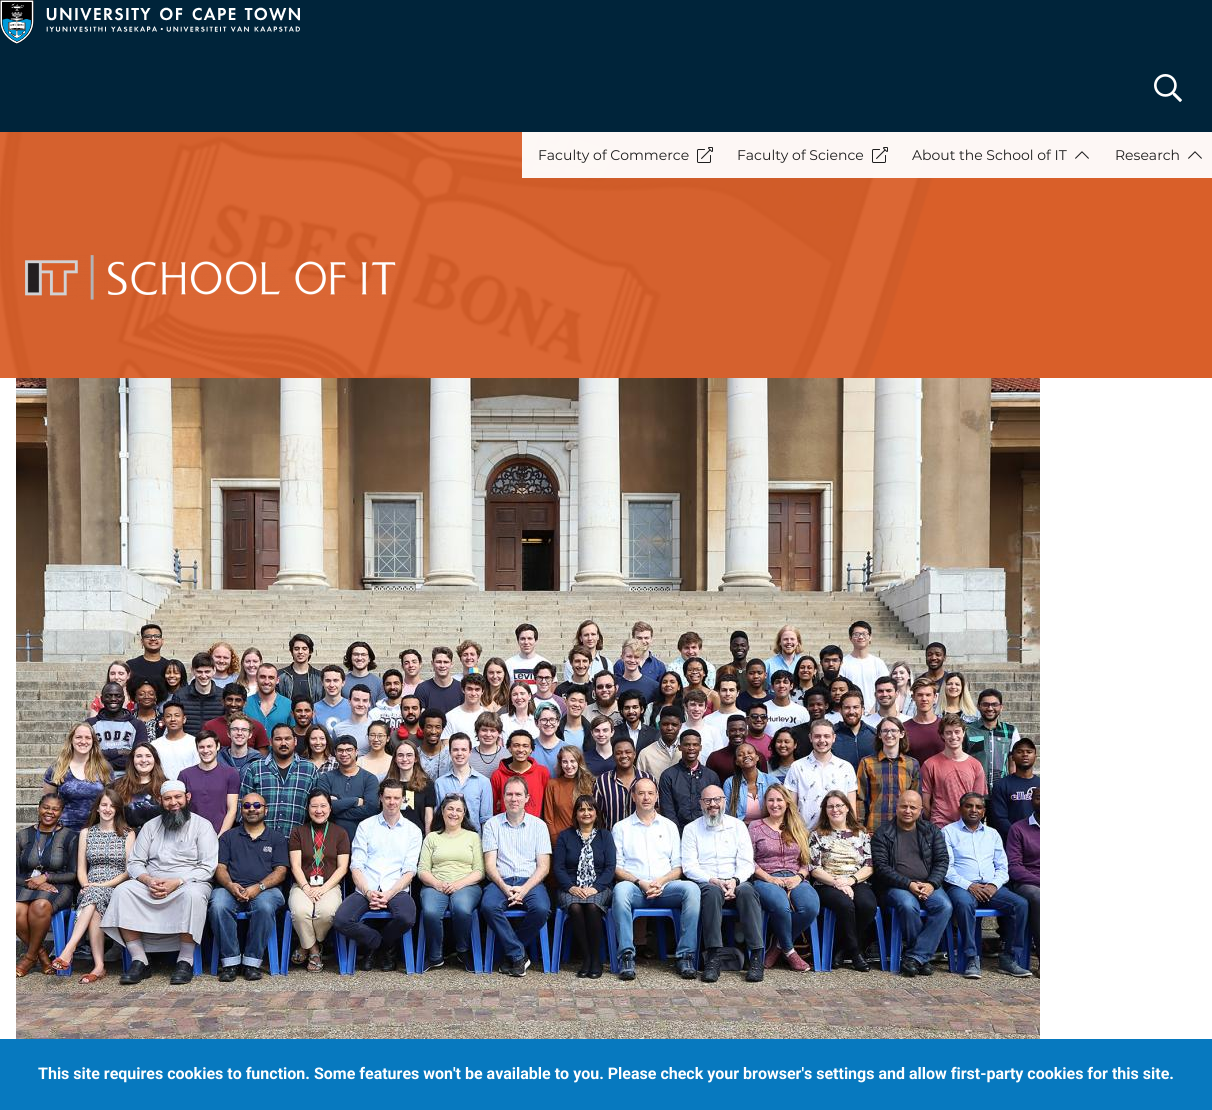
#include <cairo.h>
#include <math.h>
#include <stddef.h>

static cairo_t *ctx;

static void use_color(int r, int g, int b) {
    cairo_set_source_rgb(ctx, r / 255.0, g / 255.0, b / 255.0);
}

static void picture(const char *path, double x, double y, double w, double h) {
    cairo_surface_t *image = cairo_image_surface_create_from_png(path);
    cairo_save(ctx);
    cairo_set_source_surface(ctx, image, x, y);
    cairo_rectangle(ctx, x, y, w, h);
    cairo_fill(ctx);
    cairo_restore(ctx);
    cairo_surface_destroy(image);
}

int main(void) {
    cairo_surface_t *surface = cairo_image_surface_create(CAIRO_FORMAT_RGB24, 1212, 1110);
    ctx = cairo_create(surface);
    cairo_font_options_t *options = cairo_font_options_create();
    cairo_font_options_set_hint_metrics(options, CAIRO_HINT_METRICS_OFF);
    cairo_font_options_set_hint_style(options, CAIRO_HINT_STYLE_NONE);
    cairo_set_font_options(ctx, options);
    cairo_set_miter_limit(ctx, 4);
    use_color(255, 255, 255);
    cairo_paint(ctx);
    use_color(0, 36, 58);
    cairo_rectangle(ctx, 0, 0, 1212, 132);
    cairo_fill(ctx);
    picture("img1.png", 0, 0, 300, 44);
    picture("img2.png", 1154, 74, 28, 28);
    picture("img3.png", 0, 132, 1212, 246);
    cairo_set_source_rgba(ctx, 1, 1, 1, 0.95);
    cairo_rectangle(ctx, 522, 132, 690, 46);
    cairo_fill(ctx);
    cairo_select_font_face(ctx, "Montserrat", CAIRO_FONT_SLANT_NORMAL, CAIRO_FONT_WEIGHT_NORMAL);
    cairo_set_font_size(ctx, 14);
    use_color(30, 30, 30);
    cairo_move_to(ctx, 538, 160);
    cairo_show_text(ctx, "Faculty of Commerce");
    picture("img4.png", 697, 147, 16, 16);
    cairo_move_to(ctx, 737, 160);
    cairo_show_text(ctx, "Faculty of Science");
    picture("img5.png", 872, 147, 16, 16);
    cairo_move_to(ctx, 912, 160);
    cairo_show_text(ctx, "About the School of IT");
    picture("img6.png", 1075, 151, 14, 8);
    cairo_move_to(ctx, 1115, 160);
    cairo_show_text(ctx, "Research");
    picture("img6.png", 1188, 151, 14, 8);
    picture("img7.png", 25, 255, 371, 45);
    picture("img8.png", 16, 378, 1024, 661);
    use_color(7, 121, 191);
    cairo_rectangle(ctx, 0, 1039, 1212, 71);
    cairo_fill(ctx);
    cairo_select_font_face(ctx, "Roboto", CAIRO_FONT_SLANT_NORMAL, CAIRO_FONT_WEIGHT_BOLD);
    cairo_set_font_size(ctx, 16);
    use_color(255, 255, 255);
    cairo_move_to(ctx, 38, 1079);
    cairo_show_text(ctx, "This site requires cookies to function. Some features won't be available to you. Please check your browser's settings and allow first-party cookies for this site.");
    cairo_surface_write_to_png(surface, "result.png");
    cairo_font_options_destroy(options);
    cairo_destroy(ctx);
    cairo_surface_destroy(surface);
    return 0;
}
